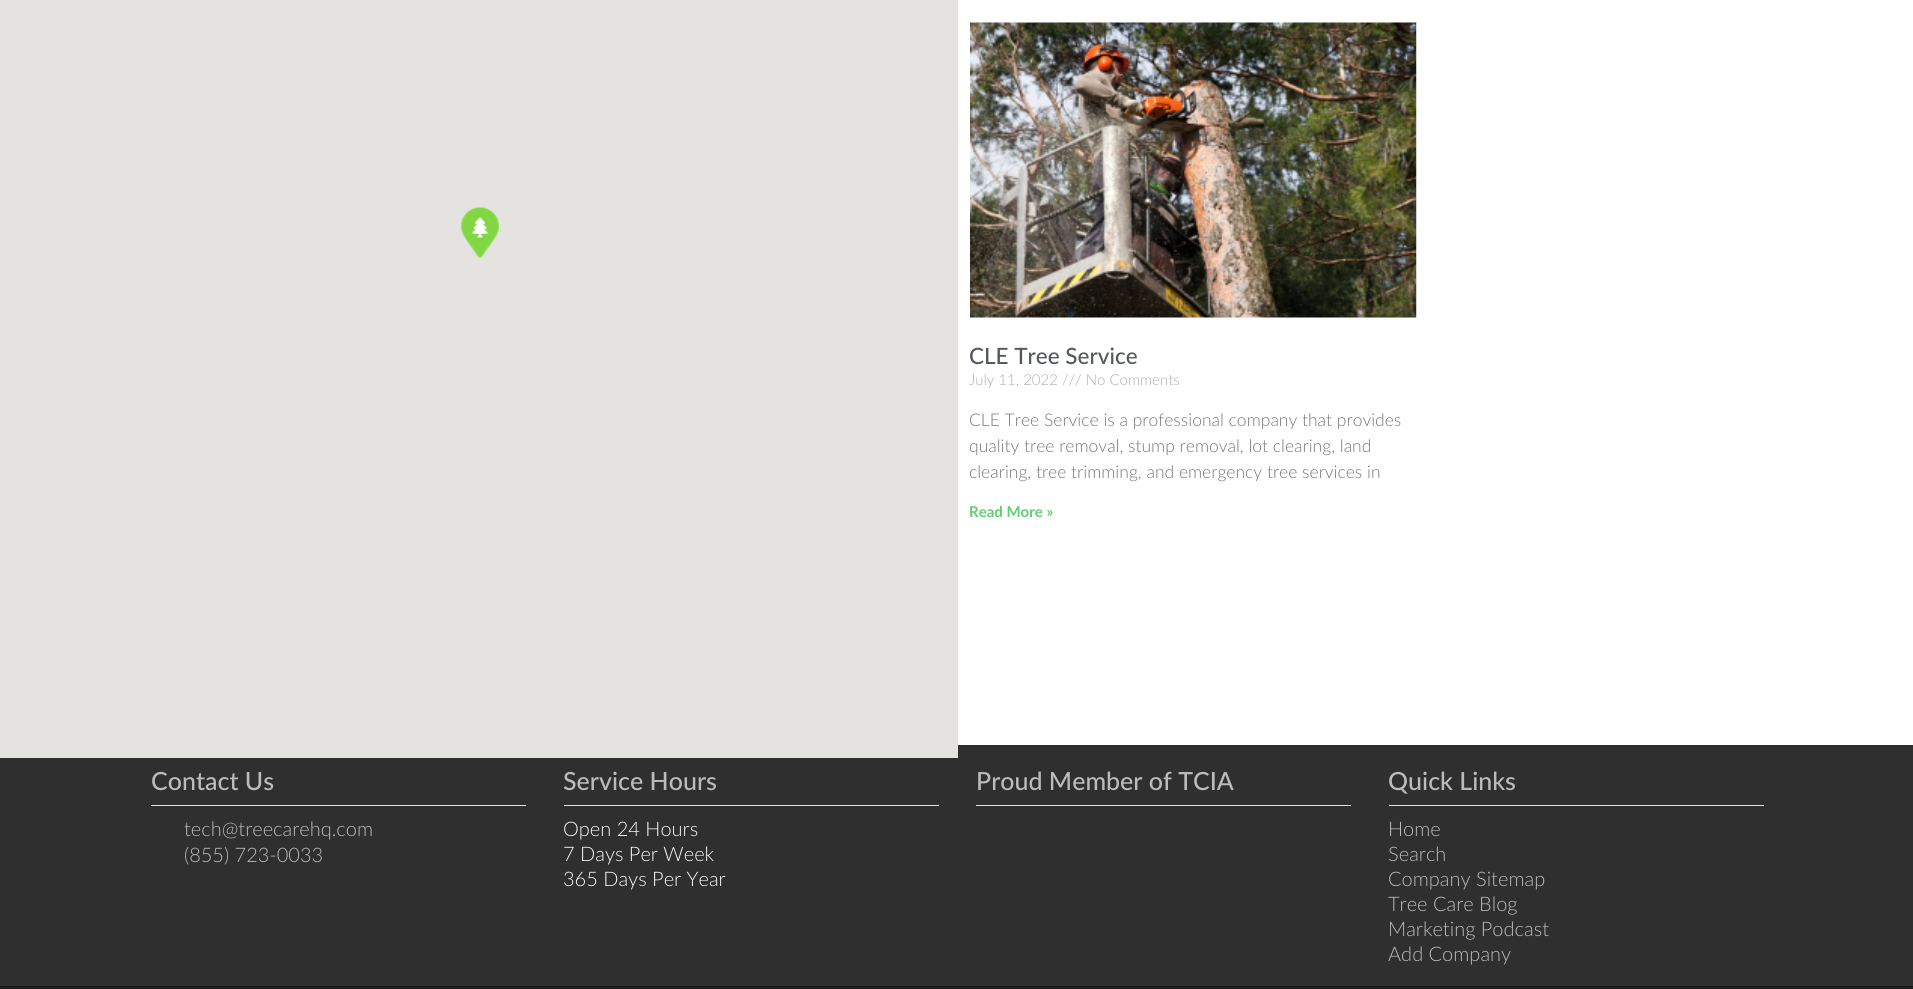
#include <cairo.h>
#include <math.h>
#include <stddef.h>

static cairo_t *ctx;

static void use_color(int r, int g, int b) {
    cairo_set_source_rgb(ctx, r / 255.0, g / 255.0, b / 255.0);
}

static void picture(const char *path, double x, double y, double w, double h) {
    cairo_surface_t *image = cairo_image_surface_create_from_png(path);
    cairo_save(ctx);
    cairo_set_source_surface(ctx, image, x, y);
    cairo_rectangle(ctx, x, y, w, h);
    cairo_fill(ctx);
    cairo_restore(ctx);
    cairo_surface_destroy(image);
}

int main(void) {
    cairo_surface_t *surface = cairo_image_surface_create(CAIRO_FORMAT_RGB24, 1913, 989);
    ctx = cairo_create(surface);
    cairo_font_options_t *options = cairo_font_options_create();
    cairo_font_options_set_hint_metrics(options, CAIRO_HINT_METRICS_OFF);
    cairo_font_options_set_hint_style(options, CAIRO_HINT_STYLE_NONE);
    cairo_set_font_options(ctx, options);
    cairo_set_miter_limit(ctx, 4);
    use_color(255, 255, 255);
    cairo_paint(ctx);
    use_color(47, 47, 47);
    cairo_rectangle(ctx, 0, 745, 1913, 241);
    cairo_fill(ctx);
    use_color(229, 227, 223);
    cairo_rectangle(ctx, 0, 0, 958, 758);
    cairo_fill(ctx);
    picture("img1.png", 461, 207, 38, 51);
    picture("img2.png", 970, 22, 447, 296);
    cairo_select_font_face(ctx, "Lato Medium", CAIRO_FONT_SLANT_NORMAL, CAIRO_FONT_WEIGHT_NORMAL);
    cairo_set_font_size(ctx, 22.5);
    use_color(84, 89, 95);
    cairo_move_to(ctx, 969, 364);
    cairo_show_text(ctx, "CLE Tree Service");
    cairo_select_font_face(ctx, "Lato Light", CAIRO_FONT_SLANT_NORMAL, CAIRO_FONT_WEIGHT_NORMAL);
    cairo_set_font_size(ctx, 15);
    use_color(173, 173, 173);
    cairo_move_to(ctx, 969, 385);
    cairo_show_text(ctx, "July 11, 2022 /// No Comments");
    cairo_set_font_size(ctx, 17.5);
    use_color(119, 119, 119);
    cairo_move_to(ctx, 969, 426);
    cairo_show_text(ctx, "CLE Tree Service is a professional company that provides");
    cairo_move_to(ctx, 969, 452);
    cairo_show_text(ctx, "quality tree removal, stump removal, lot clearing, land");
    cairo_move_to(ctx, 969, 478);
    cairo_show_text(ctx, "clearing, tree trimming, and emergency tree services in");
    cairo_select_font_face(ctx, "Lato", CAIRO_FONT_SLANT_NORMAL, CAIRO_FONT_WEIGHT_BOLD);
    cairo_set_font_size(ctx, 15);
    use_color(97, 206, 112);
    cairo_move_to(ctx, 969, 517);
    cairo_show_text(ctx, "Read More »");
    use_color(222, 226, 230);
    cairo_rectangle(ctx, 151, 805, 375, 1);
    cairo_fill(ctx);
    cairo_select_font_face(ctx, "Lato Medium", CAIRO_FONT_SLANT_NORMAL, CAIRO_FONT_WEIGHT_NORMAL);
    cairo_set_font_size(ctx, 25);
    use_color(187, 187, 187);
    cairo_move_to(ctx, 151, 790);
    cairo_show_text(ctx, "Contact Us");
    cairo_select_font_face(ctx, "Lato Light", CAIRO_FONT_SLANT_NORMAL, CAIRO_FONT_WEIGHT_NORMAL);
    cairo_set_font_size(ctx, 20);
    cairo_move_to(ctx, 184, 836);
    cairo_show_text(ctx, "tech@treecarehq.com");
    cairo_move_to(ctx, 184, 862);
    cairo_show_text(ctx, "(855) 723-0033");
    use_color(222, 226, 230);
    cairo_rectangle(ctx, 564, 805, 375, 1);
    cairo_fill(ctx);
    cairo_select_font_face(ctx, "Lato Medium", CAIRO_FONT_SLANT_NORMAL, CAIRO_FONT_WEIGHT_NORMAL);
    cairo_set_font_size(ctx, 25);
    use_color(187, 187, 187);
    cairo_move_to(ctx, 563, 790);
    cairo_show_text(ctx, "Service Hours");
    cairo_select_font_face(ctx, "Lato Light", CAIRO_FONT_SLANT_NORMAL, CAIRO_FONT_WEIGHT_NORMAL);
    cairo_set_font_size(ctx, 20);
    use_color(248, 249, 250);
    cairo_move_to(ctx, 563, 836);
    cairo_show_text(ctx, "Open 24 Hours");
    cairo_move_to(ctx, 563, 861);
    cairo_show_text(ctx, "7 Days Per Week");
    cairo_move_to(ctx, 563, 886);
    cairo_show_text(ctx, "365 Days Per Year");
    use_color(222, 226, 230);
    cairo_rectangle(ctx, 976, 805, 375, 1);
    cairo_fill(ctx);
    cairo_select_font_face(ctx, "Lato Medium", CAIRO_FONT_SLANT_NORMAL, CAIRO_FONT_WEIGHT_NORMAL);
    cairo_set_font_size(ctx, 25);
    use_color(187, 187, 187);
    cairo_move_to(ctx, 976, 790);
    cairo_show_text(ctx, "Proud Member of TCIA");
    use_color(222, 226, 230);
    cairo_rectangle(ctx, 1389, 805, 375, 1);
    cairo_fill(ctx);
    use_color(187, 187, 187);
    cairo_move_to(ctx, 1388, 790);
    cairo_show_text(ctx, "Quick Links");
    cairo_select_font_face(ctx, "Lato Light", CAIRO_FONT_SLANT_NORMAL, CAIRO_FONT_WEIGHT_NORMAL);
    cairo_set_font_size(ctx, 20);
    cairo_move_to(ctx, 1388, 836);
    cairo_show_text(ctx, "Home");
    cairo_move_to(ctx, 1388, 861);
    cairo_show_text(ctx, "Search");
    cairo_move_to(ctx, 1388, 886);
    cairo_show_text(ctx, "Company Sitemap");
    cairo_move_to(ctx, 1388, 911);
    cairo_show_text(ctx, "Tree Care Blog");
    cairo_move_to(ctx, 1388, 936);
    cairo_show_text(ctx, "Marketing Podcast");
    cairo_move_to(ctx, 1388, 961);
    cairo_show_text(ctx, "Add Company");
    use_color(32, 32, 32);
    cairo_rectangle(ctx, 0, 987, 1913, 2);
    cairo_fill(ctx);
    use_color(21, 21, 21);
    cairo_rectangle(ctx, 0, 986, 1913, 1);
    cairo_fill(ctx);
    cairo_surface_write_to_png(surface, "result.png");
    cairo_font_options_destroy(options);
    cairo_destroy(ctx);
    cairo_surface_destroy(surface);
    return 0;
}
